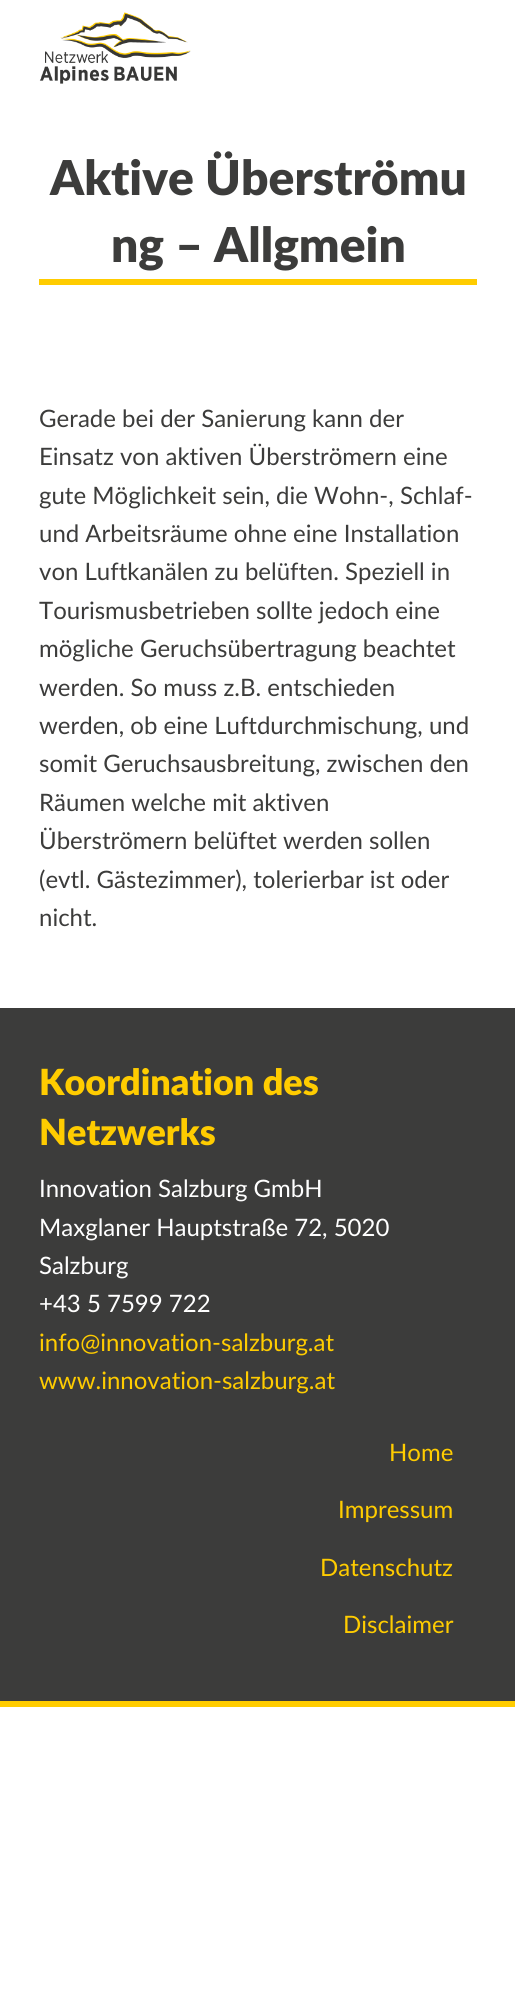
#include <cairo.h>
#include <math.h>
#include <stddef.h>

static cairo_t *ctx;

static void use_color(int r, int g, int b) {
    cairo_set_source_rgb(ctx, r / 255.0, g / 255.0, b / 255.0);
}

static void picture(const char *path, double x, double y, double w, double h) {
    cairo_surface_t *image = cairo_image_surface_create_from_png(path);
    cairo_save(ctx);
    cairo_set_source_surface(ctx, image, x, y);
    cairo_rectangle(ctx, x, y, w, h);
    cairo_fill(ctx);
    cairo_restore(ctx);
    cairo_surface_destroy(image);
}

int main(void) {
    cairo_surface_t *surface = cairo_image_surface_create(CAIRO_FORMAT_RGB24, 515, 2007);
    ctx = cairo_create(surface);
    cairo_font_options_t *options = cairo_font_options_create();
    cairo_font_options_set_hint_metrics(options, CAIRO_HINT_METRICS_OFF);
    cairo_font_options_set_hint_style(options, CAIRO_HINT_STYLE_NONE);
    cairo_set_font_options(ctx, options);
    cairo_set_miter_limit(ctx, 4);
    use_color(255, 255, 255);
    cairo_paint(ctx);
    picture("img1.png", 39, 12, 152, 72);
    cairo_select_font_face(ctx, "Lato Black", CAIRO_FONT_SLANT_NORMAL, CAIRO_FONT_WEIGHT_NORMAL);
    cairo_set_font_size(ctx, 48);
    use_color(60, 60, 59);
    cairo_move_to(ctx, 50, 195);
    cairo_show_text(ctx, "Aktive Überströmu");
    cairo_move_to(ctx, 111, 262);
    cairo_show_text(ctx, "ng – Allgmein");
    use_color(255, 204, 0);
    cairo_rectangle(ctx, 39, 279, 438, 6);
    cairo_fill(ctx);
    cairo_select_font_face(ctx, "Lato", CAIRO_FONT_SLANT_NORMAL, CAIRO_FONT_WEIGHT_NORMAL);
    cairo_set_font_size(ctx, 24);
    use_color(60, 60, 59);
    cairo_move_to(ctx, 39, 427);
    cairo_show_text(ctx, "Gerade bei der Sanierung kann der");
    cairo_move_to(ctx, 39, 465);
    cairo_show_text(ctx, "Einsatz von aktiven Überströmern eine");
    cairo_move_to(ctx, 39, 504);
    cairo_show_text(ctx, "gute Möglichkeit sein, die Wohn-, Schlaf-");
    cairo_move_to(ctx, 39, 542);
    cairo_show_text(ctx, "und Arbeitsräume ohne eine Installation");
    cairo_move_to(ctx, 39, 580);
    cairo_show_text(ctx, "von Luftkanälen zu belüften. Speziell in");
    cairo_move_to(ctx, 39, 619);
    cairo_show_text(ctx, "Tourismusbetrieben sollte jedoch eine");
    cairo_move_to(ctx, 39, 657);
    cairo_show_text(ctx, "mögliche Geruchsübertragung beachtet");
    cairo_move_to(ctx, 39, 696);
    cairo_show_text(ctx, "werden. So muss z.B. entschieden");
    cairo_move_to(ctx, 39, 734);
    cairo_show_text(ctx, "werden, ob eine Luftdurchmischung, und");
    cairo_move_to(ctx, 39, 772);
    cairo_show_text(ctx, "somit Geruchsausbreitung, zwischen den");
    cairo_move_to(ctx, 39, 811);
    cairo_show_text(ctx, "Räumen welche mit aktiven");
    cairo_move_to(ctx, 39, 849);
    cairo_show_text(ctx, "Überströmern belüftet werden sollen");
    cairo_move_to(ctx, 39, 888);
    cairo_show_text(ctx, "(evtl. Gästezimmer), tolerierbar ist oder");
    cairo_move_to(ctx, 39, 926);
    cairo_show_text(ctx, "nicht.");
    cairo_rectangle(ctx, 0, 1008, 515, 693);
    cairo_fill(ctx);
    use_color(255, 204, 0);
    cairo_rectangle(ctx, 0, 1701, 515, 6);
    cairo_fill(ctx);
    cairo_select_font_face(ctx, "Lato Black", CAIRO_FONT_SLANT_NORMAL, CAIRO_FONT_WEIGHT_NORMAL);
    cairo_set_font_size(ctx, 36);
    cairo_move_to(ctx, 39, 1095);
    cairo_show_text(ctx, "Koordination des");
    cairo_move_to(ctx, 39, 1145);
    cairo_show_text(ctx, "Netzwerks");
    cairo_select_font_face(ctx, "Lato", CAIRO_FONT_SLANT_NORMAL, CAIRO_FONT_WEIGHT_NORMAL);
    cairo_set_font_size(ctx, 24);
    use_color(255, 255, 255);
    cairo_move_to(ctx, 39, 1197);
    cairo_show_text(ctx, "Innovation Salzburg GmbH");
    cairo_move_to(ctx, 39, 1236);
    cairo_show_text(ctx, "Maxglaner Hauptstraße 72, 5020");
    cairo_move_to(ctx, 39, 1274);
    cairo_show_text(ctx, "Salzburg");
    cairo_move_to(ctx, 39, 1312);
    cairo_show_text(ctx, "+43 5 7599 722");
    use_color(255, 204, 0);
    cairo_move_to(ctx, 39, 1351);
    cairo_show_text(ctx, "info@innovation-salzburg.at");
    cairo_move_to(ctx, 39, 1389);
    cairo_show_text(ctx, "www.innovation-salzburg.at");
    cairo_move_to(ctx, 389, 1461);
    cairo_show_text(ctx, "Home");
    cairo_move_to(ctx, 338, 1518);
    cairo_show_text(ctx, "Impressum");
    cairo_move_to(ctx, 320, 1576);
    cairo_show_text(ctx, "Datenschutz");
    cairo_move_to(ctx, 343, 1633);
    cairo_show_text(ctx, "Disclaimer");
    cairo_surface_write_to_png(surface, "result.png");
    cairo_font_options_destroy(options);
    cairo_destroy(ctx);
    cairo_surface_destroy(surface);
    return 0;
}
